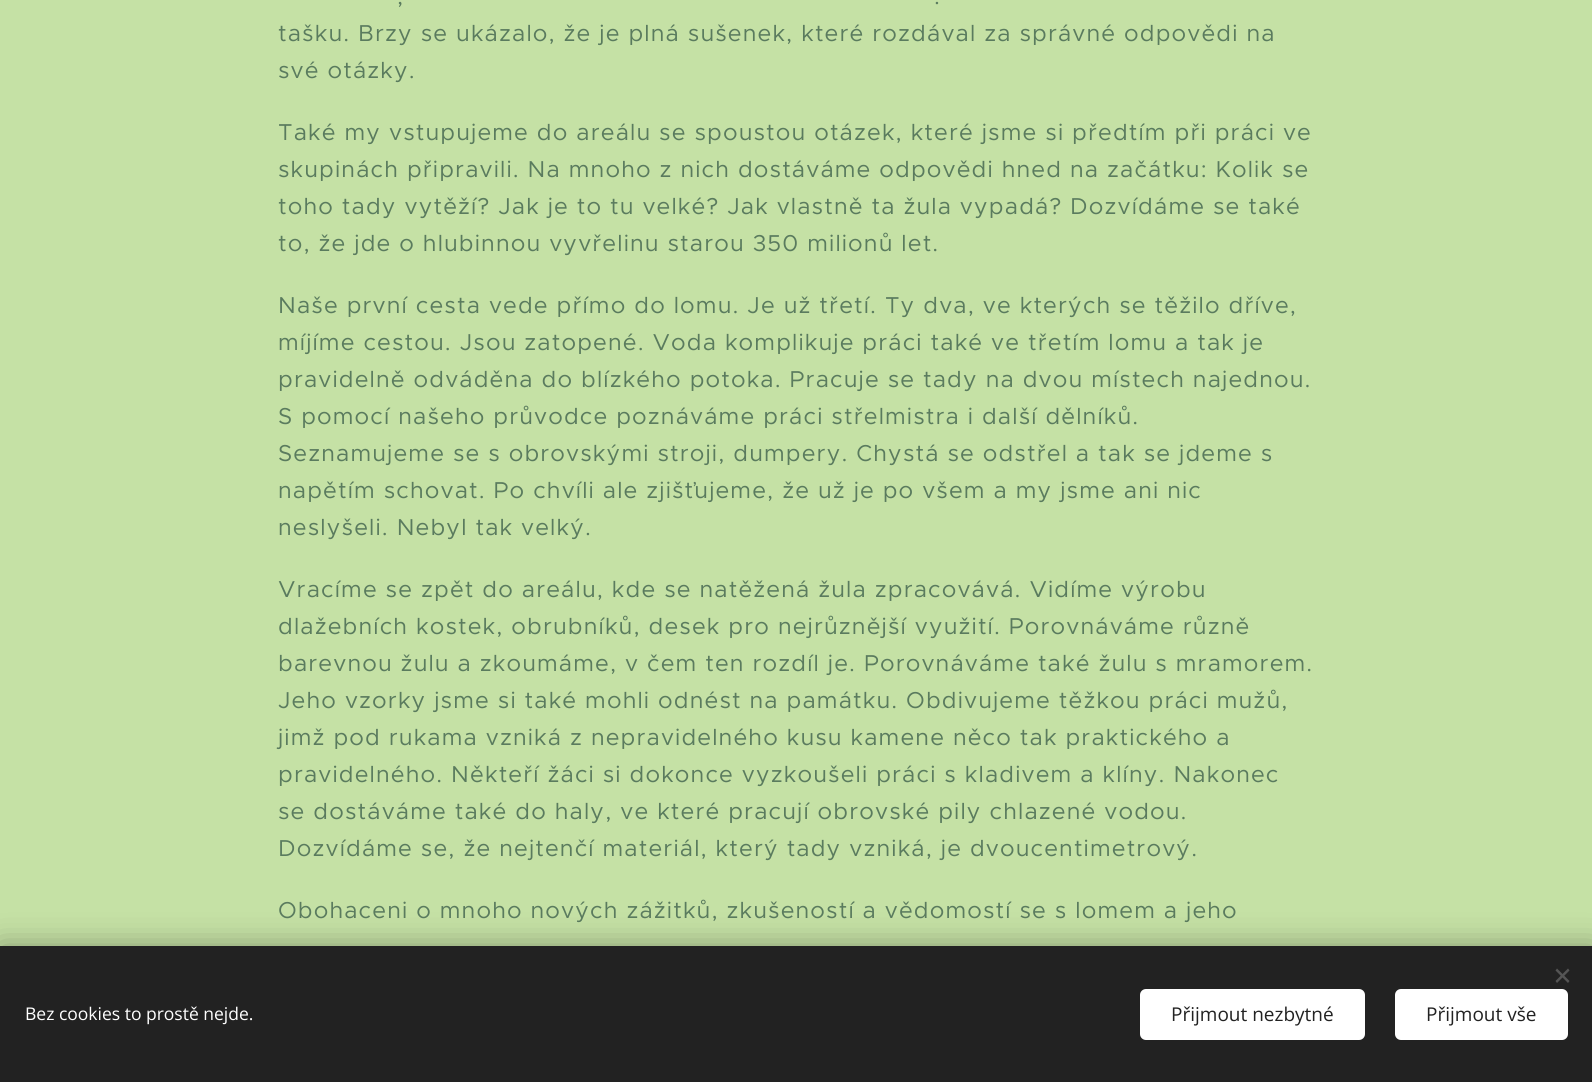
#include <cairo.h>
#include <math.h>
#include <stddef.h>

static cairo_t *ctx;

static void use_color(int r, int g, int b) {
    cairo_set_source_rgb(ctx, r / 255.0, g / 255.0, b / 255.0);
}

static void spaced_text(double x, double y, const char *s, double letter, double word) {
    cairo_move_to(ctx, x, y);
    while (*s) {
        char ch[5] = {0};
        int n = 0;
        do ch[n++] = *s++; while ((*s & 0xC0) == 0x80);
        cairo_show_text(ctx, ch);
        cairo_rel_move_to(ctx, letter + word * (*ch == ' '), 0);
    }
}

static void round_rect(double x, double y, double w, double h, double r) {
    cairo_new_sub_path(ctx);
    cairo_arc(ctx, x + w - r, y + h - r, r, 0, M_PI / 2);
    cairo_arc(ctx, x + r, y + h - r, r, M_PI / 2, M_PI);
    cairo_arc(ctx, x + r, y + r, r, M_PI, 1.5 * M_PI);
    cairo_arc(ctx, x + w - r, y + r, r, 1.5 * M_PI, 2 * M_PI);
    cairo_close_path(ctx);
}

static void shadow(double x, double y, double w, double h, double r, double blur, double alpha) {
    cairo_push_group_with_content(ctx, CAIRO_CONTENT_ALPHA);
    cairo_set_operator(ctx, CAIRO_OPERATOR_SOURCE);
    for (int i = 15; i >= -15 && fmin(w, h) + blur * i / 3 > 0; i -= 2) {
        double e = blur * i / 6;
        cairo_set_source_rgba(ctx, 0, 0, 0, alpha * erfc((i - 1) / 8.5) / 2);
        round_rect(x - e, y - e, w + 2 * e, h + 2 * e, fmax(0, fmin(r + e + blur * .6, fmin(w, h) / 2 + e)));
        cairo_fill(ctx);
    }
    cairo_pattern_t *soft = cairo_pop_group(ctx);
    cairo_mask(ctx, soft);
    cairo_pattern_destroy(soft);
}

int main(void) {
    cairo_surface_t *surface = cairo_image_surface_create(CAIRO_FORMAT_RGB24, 1592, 1082);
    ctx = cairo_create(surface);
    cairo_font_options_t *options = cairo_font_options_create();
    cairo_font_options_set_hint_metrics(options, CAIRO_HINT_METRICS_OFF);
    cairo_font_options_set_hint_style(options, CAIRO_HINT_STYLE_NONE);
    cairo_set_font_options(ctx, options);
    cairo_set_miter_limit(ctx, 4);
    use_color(197, 225, 165);
    cairo_paint(ctx);
    cairo_select_font_face(ctx, "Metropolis", CAIRO_FONT_SLANT_NORMAL, CAIRO_FONT_WEIGHT_NORMAL);
    cairo_set_font_size(ctx, 23.1);
    use_color(90, 123, 94);
    spaced_text(397, 4, ",", 1.15, 0);
    spaced_text(934, 4, ".", 1.15, 0);
    spaced_text(278, 41, "tašku. Brzy se ukázalo, že je plná sušenek, které rozdával za správné odpovědi na", 1.15, 0);
    spaced_text(278, 78, "své otázky.", 1.15, 0);
    spaced_text(278, 140, "Také my vstupujeme do areálu se spoustou otázek, které jsme si předtím při práci ve", 1.15, 0);
    spaced_text(278, 177, "skupinách připravili. Na mnoho z nich dostáváme odpovědi hned na začátku: Kolik se", 1.15, 0);
    spaced_text(278, 214, "toho tady vytěží? Jak je to tu velké? Jak vlastně ta žula vypadá? Dozvídáme se také", 1.15, 0);
    spaced_text(278, 251, "to, že jde o hlubinnou vyvřelinu starou 350 milionů let.", 1.15, 0);
    spaced_text(278, 313, "Naše první cesta vede přímo do lomu. Je už třetí. Ty dva, ve kterých se těžilo dříve,", 1.15, 0);
    spaced_text(278, 350, "míjíme cestou. Jsou zatopené. Voda komplikuje práci také ve třetím lomu a tak je", 1.15, 0);
    spaced_text(278, 387, "pravidelně odváděna do blízkého potoka. Pracuje se tady na dvou místech najednou.", 1.15, 0);
    spaced_text(278, 424, "S pomocí našeho průvodce poznáváme práci střelmistra i další dělníků.", 1.15, 0);
    spaced_text(278, 461, "Seznamujeme se s obrovskými stroji, dumpery. Chystá se odstřel a tak se jdeme s", 1.15, 0);
    spaced_text(278, 498, "napětím schovat. Po chvíli ale zjišťujeme, že už je po všem a my jsme ani nic", 1.15, 0);
    spaced_text(278, 535, "neslyšeli. Nebyl tak velký.", 1.15, 0);
    spaced_text(278, 597, "Vracíme se zpět do areálu, kde se natěžená žula zpracovává. Vidíme výrobu", 1.15, 0);
    spaced_text(278, 634, "dlažebních kostek, obrubníků, desek pro nejrůznější využití. Porovnáváme různě", 1.15, 0);
    spaced_text(278, 671, "barevnou žulu a zkoumáme, v čem ten rozdíl je. Porovnáváme také žulu s mramorem.", 1.15, 0);
    spaced_text(278, 708, "Jeho vzorky jsme si také mohli odnést na památku. Obdivujeme těžkou práci mužů,", 1.15, 0);
    spaced_text(278, 745, "jimž pod rukama vzniká z nepravidelného kusu kamene něco tak praktického a", 1.15, 0);
    spaced_text(278, 782, "pravidelného. Někteří žáci si dokonce vyzkoušeli práci s kladivem a klíny. Nakonec", 1.15, 0);
    spaced_text(278, 819, "se dostáváme také do haly, ve které pracují obrovské pily chlazené vodou.", 1.15, 0);
    spaced_text(278, 856, "Dozvídáme se, že nejtenčí materiál, který tady vzniká, je dvoucentimetrový.", 1.15, 0);
    spaced_text(278, 918, "Obohaceni o mnoho nových zážitků, zkušeností a vědomostí se s lomem a jeho", 1.15, 0);
    use_color(0, 0, 0);
    shadow(0, 946, 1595, 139, 0, 15.5, 0.33);
    use_color(34, 34, 34);
    cairo_rectangle(ctx, 0, 946, 1592, 136);
    cairo_fill(ctx);
    use_color(85, 85, 85);
    cairo_new_path(ctx);
    cairo_move_to(ctx, 1555.5, 981);
    cairo_line_to(ctx, 1568, 968.5);
    cairo_line_to(ctx, 1569.5, 970.5);
    cairo_line_to(ctx, 1557, 983);
    cairo_close_path(ctx);
    cairo_fill(ctx);
    cairo_new_path(ctx);
    cairo_move_to(ctx, 1557, 968.5);
    cairo_line_to(ctx, 1569.5, 981);
    cairo_line_to(ctx, 1568, 983);
    cairo_line_to(ctx, 1555.5, 970.5);
    cairo_close_path(ctx);
    cairo_fill(ctx);
    cairo_select_font_face(ctx, "Open Sans", CAIRO_FONT_SLANT_NORMAL, CAIRO_FONT_WEIGHT_NORMAL);
    cairo_set_font_size(ctx, 17.5);
    use_color(255, 255, 255);
    cairo_move_to(ctx, 25, 1020);
    cairo_show_text(ctx, "Bez cookies to prostě nejde.");
    round_rect(1140, 989, 225, 51, 6);
    cairo_fill(ctx);
    cairo_set_font_size(ctx, 19);
    use_color(34, 34, 34);
    cairo_move_to(ctx, 1171, 1021);
    cairo_show_text(ctx, "Přijmout nezbytné");
    use_color(255, 255, 255);
    round_rect(1395, 989, 173, 51, 6);
    cairo_fill(ctx);
    use_color(34, 34, 34);
    cairo_move_to(ctx, 1426, 1021);
    cairo_show_text(ctx, "Přijmout vše");
    cairo_surface_write_to_png(surface, "result.png");
    cairo_font_options_destroy(options);
    cairo_destroy(ctx);
    cairo_surface_destroy(surface);
    return 0;
}
